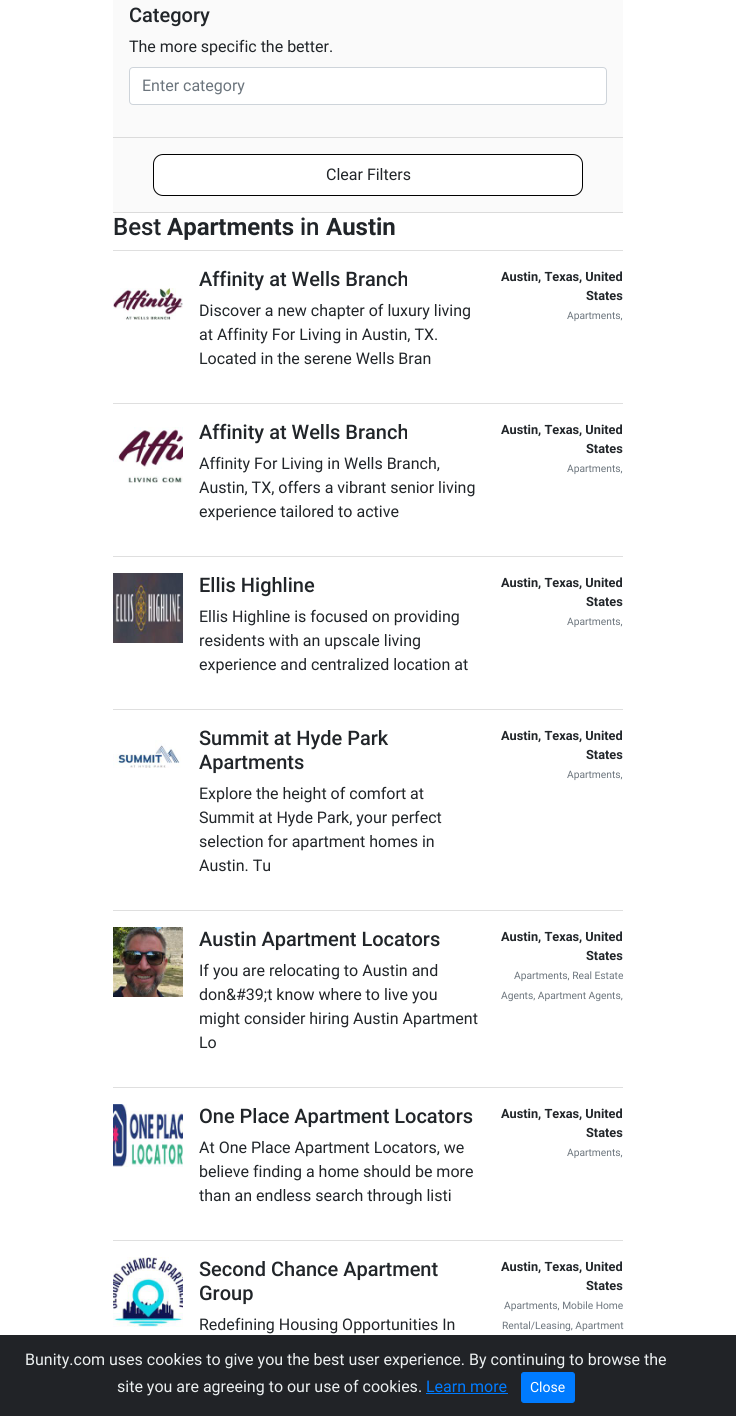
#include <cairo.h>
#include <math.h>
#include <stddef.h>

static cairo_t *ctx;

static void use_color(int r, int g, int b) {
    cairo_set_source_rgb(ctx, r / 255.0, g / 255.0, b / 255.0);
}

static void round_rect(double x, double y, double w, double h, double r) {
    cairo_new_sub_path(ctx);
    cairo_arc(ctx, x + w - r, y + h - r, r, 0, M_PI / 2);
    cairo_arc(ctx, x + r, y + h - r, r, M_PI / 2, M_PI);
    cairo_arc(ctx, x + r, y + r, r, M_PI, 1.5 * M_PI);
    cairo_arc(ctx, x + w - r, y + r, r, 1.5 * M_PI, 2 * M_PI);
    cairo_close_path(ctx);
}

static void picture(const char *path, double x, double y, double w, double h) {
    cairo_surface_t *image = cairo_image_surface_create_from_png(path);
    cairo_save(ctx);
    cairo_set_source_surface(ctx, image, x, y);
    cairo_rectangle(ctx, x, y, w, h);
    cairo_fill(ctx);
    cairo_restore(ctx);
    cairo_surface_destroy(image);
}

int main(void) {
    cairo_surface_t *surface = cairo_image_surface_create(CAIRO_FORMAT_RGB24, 736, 1416);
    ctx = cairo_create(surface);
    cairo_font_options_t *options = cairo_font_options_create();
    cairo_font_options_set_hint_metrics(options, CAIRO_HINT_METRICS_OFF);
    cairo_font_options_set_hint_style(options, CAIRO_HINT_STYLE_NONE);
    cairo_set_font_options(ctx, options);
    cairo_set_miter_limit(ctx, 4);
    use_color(255, 255, 255);
    cairo_paint(ctx);
    use_color(250, 250, 250);
    cairo_rectangle(ctx, 113, 0, 510, 212);
    cairo_fill(ctx);
    use_color(219, 219, 219);
    cairo_rectangle(ctx, 113, 137, 510, 1);
    cairo_fill(ctx);
    cairo_select_font_face(ctx, "Roboto Medium", CAIRO_FONT_SLANT_NORMAL, CAIRO_FONT_WEIGHT_NORMAL);
    cairo_set_font_size(ctx, 20);
    use_color(33, 37, 41);
    cairo_move_to(ctx, 129, 22);
    cairo_show_text(ctx, "Category");
    cairo_select_font_face(ctx, "Roboto", CAIRO_FONT_SLANT_NORMAL, CAIRO_FONT_WEIGHT_NORMAL);
    cairo_set_font_size(ctx, 16);
    cairo_move_to(ctx, 129, 52);
    cairo_show_text(ctx, "The more specific the better.");
    use_color(255, 255, 255);
    round_rect(129.5, 67.5, 477, 37, 3.5);
    cairo_fill_preserve(ctx);
    use_color(206, 212, 218);
    cairo_set_line_width(ctx, 1);
    cairo_stroke(ctx);
    use_color(108, 117, 125);
    cairo_move_to(ctx, 142, 91);
    cairo_show_text(ctx, "Enter category");
    use_color(219, 219, 219);
    cairo_rectangle(ctx, 113, 212, 510, 1);
    cairo_fill(ctx);
    use_color(255, 255, 255);
    round_rect(153.5, 154.5, 429, 41, 9.5);
    cairo_fill_preserve(ctx);
    use_color(0, 0, 0);
    cairo_stroke(ctx);
    use_color(33, 37, 41);
    cairo_move_to(ctx, 326, 180);
    cairo_show_text(ctx, "Clear Filters");
    use_color(223, 223, 223);
    cairo_rectangle(ctx, 113, 250, 510, 1);
    cairo_fill(ctx);
    cairo_select_font_face(ctx, "Roboto Medium", CAIRO_FONT_SLANT_NORMAL, CAIRO_FONT_WEIGHT_NORMAL);
    cairo_set_font_size(ctx, 24);
    use_color(33, 37, 41);
    cairo_move_to(ctx, 113, 235);
    cairo_show_text(ctx, "Best");
    cairo_select_font_face(ctx, "Roboto", CAIRO_FONT_SLANT_NORMAL, CAIRO_FONT_WEIGHT_BOLD);
    cairo_move_to(ctx, 167, 235);
    cairo_show_text(ctx, "Apartments");
    cairo_select_font_face(ctx, "Roboto Medium", CAIRO_FONT_SLANT_NORMAL, CAIRO_FONT_WEIGHT_NORMAL);
    cairo_move_to(ctx, 300, 235);
    cairo_show_text(ctx, "in");
    cairo_select_font_face(ctx, "Roboto", CAIRO_FONT_SLANT_NORMAL, CAIRO_FONT_WEIGHT_BOLD);
    cairo_move_to(ctx, 326, 235);
    cairo_show_text(ctx, "Austin");
    use_color(223, 223, 223);
    cairo_rectangle(ctx, 113, 403, 510, 1);
    cairo_fill(ctx);
    picture("img1.png", 113, 288, 70, 32);
    cairo_select_font_face(ctx, "Roboto Medium", CAIRO_FONT_SLANT_NORMAL, CAIRO_FONT_WEIGHT_NORMAL);
    cairo_set_font_size(ctx, 20);
    use_color(33, 37, 41);
    cairo_move_to(ctx, 199, 286);
    cairo_show_text(ctx, "Affinity at Wells Branch");
    cairo_select_font_face(ctx, "Roboto", CAIRO_FONT_SLANT_NORMAL, CAIRO_FONT_WEIGHT_NORMAL);
    cairo_set_font_size(ctx, 16);
    cairo_move_to(ctx, 199, 316);
    cairo_show_text(ctx, "Discover a new chapter of luxury living");
    cairo_move_to(ctx, 199, 340);
    cairo_show_text(ctx, "at Affinity For Living in Austin, TX.");
    cairo_move_to(ctx, 199, 364);
    cairo_show_text(ctx, "Located in the serene Wells Bran");
    cairo_select_font_face(ctx, "Roboto", CAIRO_FONT_SLANT_NORMAL, CAIRO_FONT_WEIGHT_BOLD);
    cairo_set_font_size(ctx, 12.75);
    cairo_move_to(ctx, 501, 281);
    cairo_show_text(ctx, "Austin, Texas, United");
    cairo_move_to(ctx, 586, 300);
    cairo_show_text(ctx, "States");
    cairo_select_font_face(ctx, "Roboto", CAIRO_FONT_SLANT_NORMAL, CAIRO_FONT_WEIGHT_NORMAL);
    cairo_set_font_size(ctx, 10.25);
    use_color(108, 117, 125);
    cairo_move_to(ctx, 567, 319);
    cairo_show_text(ctx, "Apartments,");
    use_color(223, 223, 223);
    cairo_rectangle(ctx, 113, 556, 510, 1);
    cairo_fill(ctx);
    picture("img2.png", 113, 427, 70, 56);
    cairo_select_font_face(ctx, "Roboto Medium", CAIRO_FONT_SLANT_NORMAL, CAIRO_FONT_WEIGHT_NORMAL);
    cairo_set_font_size(ctx, 20);
    use_color(33, 37, 41);
    cairo_move_to(ctx, 199, 439);
    cairo_show_text(ctx, "Affinity at Wells Branch");
    cairo_select_font_face(ctx, "Roboto", CAIRO_FONT_SLANT_NORMAL, CAIRO_FONT_WEIGHT_NORMAL);
    cairo_set_font_size(ctx, 16);
    cairo_move_to(ctx, 199, 469);
    cairo_show_text(ctx, "Affinity For Living in Wells Branch,");
    cairo_move_to(ctx, 199, 493);
    cairo_show_text(ctx, "Austin, TX, offers a vibrant senior living");
    cairo_move_to(ctx, 199, 517);
    cairo_show_text(ctx, "experience tailored to active");
    cairo_select_font_face(ctx, "Roboto", CAIRO_FONT_SLANT_NORMAL, CAIRO_FONT_WEIGHT_BOLD);
    cairo_set_font_size(ctx, 12.75);
    cairo_move_to(ctx, 501, 434);
    cairo_show_text(ctx, "Austin, Texas, United");
    cairo_move_to(ctx, 586, 453);
    cairo_show_text(ctx, "States");
    cairo_select_font_face(ctx, "Roboto", CAIRO_FONT_SLANT_NORMAL, CAIRO_FONT_WEIGHT_NORMAL);
    cairo_set_font_size(ctx, 10.25);
    use_color(108, 117, 125);
    cairo_move_to(ctx, 567, 472);
    cairo_show_text(ctx, "Apartments,");
    use_color(223, 223, 223);
    cairo_rectangle(ctx, 113, 709, 510, 1);
    cairo_fill(ctx);
    picture("img3.png", 113, 573, 70, 70);
    cairo_select_font_face(ctx, "Roboto Medium", CAIRO_FONT_SLANT_NORMAL, CAIRO_FONT_WEIGHT_NORMAL);
    cairo_set_font_size(ctx, 20);
    use_color(33, 37, 41);
    cairo_move_to(ctx, 199, 592);
    cairo_show_text(ctx, "Ellis Highline");
    cairo_select_font_face(ctx, "Roboto", CAIRO_FONT_SLANT_NORMAL, CAIRO_FONT_WEIGHT_NORMAL);
    cairo_set_font_size(ctx, 16);
    cairo_move_to(ctx, 199, 622);
    cairo_show_text(ctx, "Ellis Highline is focused on providing");
    cairo_move_to(ctx, 199, 646);
    cairo_show_text(ctx, "residents with an upscale living");
    cairo_move_to(ctx, 199, 670);
    cairo_show_text(ctx, "experience and centralized location at");
    cairo_select_font_face(ctx, "Roboto", CAIRO_FONT_SLANT_NORMAL, CAIRO_FONT_WEIGHT_BOLD);
    cairo_set_font_size(ctx, 12.75);
    cairo_move_to(ctx, 501, 587);
    cairo_show_text(ctx, "Austin, Texas, United");
    cairo_move_to(ctx, 586, 606);
    cairo_show_text(ctx, "States");
    cairo_select_font_face(ctx, "Roboto", CAIRO_FONT_SLANT_NORMAL, CAIRO_FONT_WEIGHT_NORMAL);
    cairo_set_font_size(ctx, 10.25);
    use_color(108, 117, 125);
    cairo_move_to(ctx, 567, 625);
    cairo_show_text(ctx, "Apartments,");
    use_color(223, 223, 223);
    cairo_rectangle(ctx, 113, 910, 510, 1);
    cairo_fill(ctx);
    picture("img4.png", 113, 740, 68, 28);
    cairo_select_font_face(ctx, "Roboto Medium", CAIRO_FONT_SLANT_NORMAL, CAIRO_FONT_WEIGHT_NORMAL);
    cairo_set_font_size(ctx, 20);
    use_color(33, 37, 41);
    cairo_move_to(ctx, 199, 745);
    cairo_show_text(ctx, "Summit at Hyde Park");
    cairo_move_to(ctx, 199, 769);
    cairo_show_text(ctx, "Apartments");
    cairo_select_font_face(ctx, "Roboto", CAIRO_FONT_SLANT_NORMAL, CAIRO_FONT_WEIGHT_NORMAL);
    cairo_set_font_size(ctx, 16);
    cairo_move_to(ctx, 199, 799);
    cairo_show_text(ctx, "Explore the height of comfort at");
    cairo_move_to(ctx, 199, 823);
    cairo_show_text(ctx, "Summit at Hyde Park, your perfect");
    cairo_move_to(ctx, 199, 847);
    cairo_show_text(ctx, "selection for apartment homes in");
    cairo_move_to(ctx, 199, 871);
    cairo_show_text(ctx, "Austin. Tu");
    cairo_select_font_face(ctx, "Roboto", CAIRO_FONT_SLANT_NORMAL, CAIRO_FONT_WEIGHT_BOLD);
    cairo_set_font_size(ctx, 12.75);
    cairo_move_to(ctx, 501, 740);
    cairo_show_text(ctx, "Austin, Texas, United");
    cairo_move_to(ctx, 586, 759);
    cairo_show_text(ctx, "States");
    cairo_select_font_face(ctx, "Roboto", CAIRO_FONT_SLANT_NORMAL, CAIRO_FONT_WEIGHT_NORMAL);
    cairo_set_font_size(ctx, 10.25);
    use_color(108, 117, 125);
    cairo_move_to(ctx, 567, 778);
    cairo_show_text(ctx, "Apartments,");
    use_color(223, 223, 223);
    cairo_rectangle(ctx, 113, 1087, 510, 1);
    cairo_fill(ctx);
    picture("img5.png", 113, 927, 70, 70);
    cairo_select_font_face(ctx, "Roboto Medium", CAIRO_FONT_SLANT_NORMAL, CAIRO_FONT_WEIGHT_NORMAL);
    cairo_set_font_size(ctx, 20);
    use_color(33, 37, 41);
    cairo_move_to(ctx, 199, 946);
    cairo_show_text(ctx, "Austin Apartment Locators");
    cairo_select_font_face(ctx, "Roboto", CAIRO_FONT_SLANT_NORMAL, CAIRO_FONT_WEIGHT_NORMAL);
    cairo_set_font_size(ctx, 16);
    cairo_move_to(ctx, 199, 976);
    cairo_show_text(ctx, "If you are relocating to Austin and");
    cairo_move_to(ctx, 199, 1000);
    cairo_show_text(ctx, "don&#39;t know where to live you");
    cairo_move_to(ctx, 199, 1024);
    cairo_show_text(ctx, "might consider hiring Austin Apartment");
    cairo_move_to(ctx, 199, 1048);
    cairo_show_text(ctx, "Lo");
    cairo_select_font_face(ctx, "Roboto", CAIRO_FONT_SLANT_NORMAL, CAIRO_FONT_WEIGHT_BOLD);
    cairo_set_font_size(ctx, 12.75);
    cairo_move_to(ctx, 501, 941);
    cairo_show_text(ctx, "Austin, Texas, United");
    cairo_move_to(ctx, 586, 960);
    cairo_show_text(ctx, "States");
    cairo_select_font_face(ctx, "Roboto", CAIRO_FONT_SLANT_NORMAL, CAIRO_FONT_WEIGHT_NORMAL);
    cairo_set_font_size(ctx, 10.25);
    use_color(108, 117, 125);
    cairo_move_to(ctx, 514, 979);
    cairo_show_text(ctx, "Apartments, Real Estate");
    cairo_move_to(ctx, 501, 999);
    cairo_show_text(ctx, "Agents, Apartment Agents,");
    use_color(223, 223, 223);
    cairo_rectangle(ctx, 113, 1240, 510, 1);
    cairo_fill(ctx);
    picture("img6.png", 113, 1104, 70, 63);
    cairo_select_font_face(ctx, "Roboto Medium", CAIRO_FONT_SLANT_NORMAL, CAIRO_FONT_WEIGHT_NORMAL);
    cairo_set_font_size(ctx, 20);
    use_color(33, 37, 41);
    cairo_move_to(ctx, 199, 1123);
    cairo_show_text(ctx, "One Place Apartment Locators");
    cairo_select_font_face(ctx, "Roboto", CAIRO_FONT_SLANT_NORMAL, CAIRO_FONT_WEIGHT_NORMAL);
    cairo_set_font_size(ctx, 16);
    cairo_move_to(ctx, 199, 1153);
    cairo_show_text(ctx, "At One Place Apartment Locators, we");
    cairo_move_to(ctx, 199, 1177);
    cairo_show_text(ctx, "believe finding a home should be more");
    cairo_move_to(ctx, 199, 1201);
    cairo_show_text(ctx, "than an endless search through listi");
    cairo_select_font_face(ctx, "Roboto", CAIRO_FONT_SLANT_NORMAL, CAIRO_FONT_WEIGHT_BOLD);
    cairo_set_font_size(ctx, 12.75);
    cairo_move_to(ctx, 501, 1118);
    cairo_show_text(ctx, "Austin, Texas, United");
    cairo_move_to(ctx, 586, 1137);
    cairo_show_text(ctx, "States");
    cairo_select_font_face(ctx, "Roboto", CAIRO_FONT_SLANT_NORMAL, CAIRO_FONT_WEIGHT_NORMAL);
    cairo_set_font_size(ctx, 10.25);
    use_color(108, 117, 125);
    cairo_move_to(ctx, 567, 1156);
    cairo_show_text(ctx, "Apartments,");
    picture("img7.png", 113, 1257, 70, 70);
    cairo_select_font_face(ctx, "Roboto Medium", CAIRO_FONT_SLANT_NORMAL, CAIRO_FONT_WEIGHT_NORMAL);
    cairo_set_font_size(ctx, 20);
    use_color(33, 37, 41);
    cairo_move_to(ctx, 199, 1276);
    cairo_show_text(ctx, "Second Chance Apartment");
    cairo_move_to(ctx, 199, 1300);
    cairo_show_text(ctx, "Group");
    cairo_select_font_face(ctx, "Roboto", CAIRO_FONT_SLANT_NORMAL, CAIRO_FONT_WEIGHT_NORMAL);
    cairo_set_font_size(ctx, 16);
    cairo_move_to(ctx, 199, 1330);
    cairo_show_text(ctx, "Redefining Housing Opportunities In");
    cairo_select_font_face(ctx, "Roboto", CAIRO_FONT_SLANT_NORMAL, CAIRO_FONT_WEIGHT_BOLD);
    cairo_set_font_size(ctx, 12.75);
    cairo_move_to(ctx, 501, 1271);
    cairo_show_text(ctx, "Austin, Texas, United");
    cairo_move_to(ctx, 586, 1290);
    cairo_show_text(ctx, "States");
    cairo_select_font_face(ctx, "Roboto", CAIRO_FONT_SLANT_NORMAL, CAIRO_FONT_WEIGHT_NORMAL);
    cairo_set_font_size(ctx, 10.25);
    use_color(108, 117, 125);
    cairo_move_to(ctx, 504, 1309);
    cairo_show_text(ctx, "Apartments, Mobile Home");
    cairo_move_to(ctx, 502, 1329);
    cairo_show_text(ctx, "Rental/Leasing, Apartment");
    use_color(33, 35, 39);
    cairo_rectangle(ctx, 0, 1335, 736, 81);
    cairo_fill(ctx);
    cairo_set_font_size(ctx, 16);
    use_color(236, 240, 241);
    cairo_move_to(ctx, 25, 1365);
    cairo_show_text(ctx, "Bunity.com uses cookies to give you the best user experience. By continuing to browse the");
    cairo_move_to(ctx, 117, 1392);
    cairo_show_text(ctx, "site you are agreeing to our use of cookies.");
    use_color(0, 123, 255);
    cairo_move_to(ctx, 426, 1392);
    cairo_show_text(ctx, "Learn more");
    cairo_rectangle(ctx, 426, 1393, 82, 1);
    cairo_fill(ctx);
    round_rect(521.5, 1372.5, 53, 30, 2.5);
    cairo_fill_preserve(ctx);
    cairo_stroke(ctx);
    cairo_set_font_size(ctx, 14);
    use_color(255, 255, 255);
    cairo_move_to(ctx, 530, 1392);
    cairo_show_text(ctx, "Close");
    cairo_surface_write_to_png(surface, "result.png");
    cairo_font_options_destroy(options);
    cairo_destroy(ctx);
    cairo_surface_destroy(surface);
    return 0;
}
